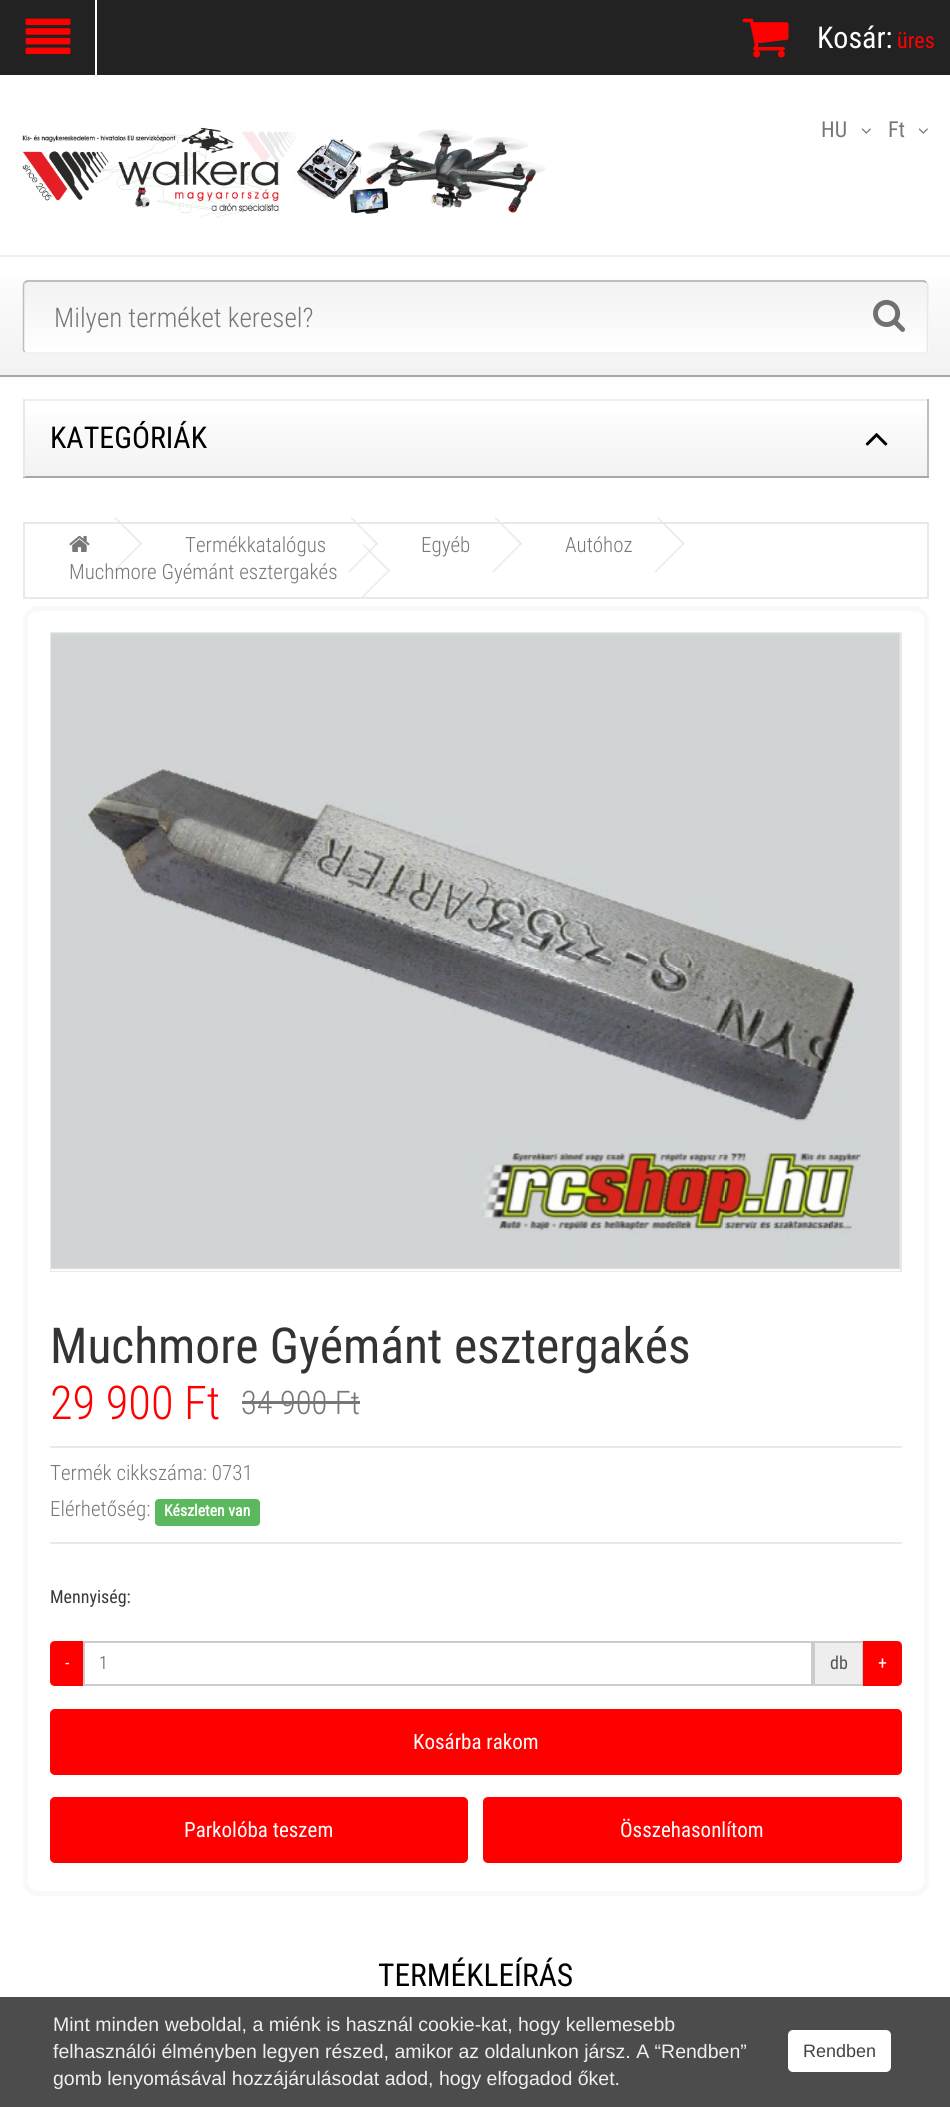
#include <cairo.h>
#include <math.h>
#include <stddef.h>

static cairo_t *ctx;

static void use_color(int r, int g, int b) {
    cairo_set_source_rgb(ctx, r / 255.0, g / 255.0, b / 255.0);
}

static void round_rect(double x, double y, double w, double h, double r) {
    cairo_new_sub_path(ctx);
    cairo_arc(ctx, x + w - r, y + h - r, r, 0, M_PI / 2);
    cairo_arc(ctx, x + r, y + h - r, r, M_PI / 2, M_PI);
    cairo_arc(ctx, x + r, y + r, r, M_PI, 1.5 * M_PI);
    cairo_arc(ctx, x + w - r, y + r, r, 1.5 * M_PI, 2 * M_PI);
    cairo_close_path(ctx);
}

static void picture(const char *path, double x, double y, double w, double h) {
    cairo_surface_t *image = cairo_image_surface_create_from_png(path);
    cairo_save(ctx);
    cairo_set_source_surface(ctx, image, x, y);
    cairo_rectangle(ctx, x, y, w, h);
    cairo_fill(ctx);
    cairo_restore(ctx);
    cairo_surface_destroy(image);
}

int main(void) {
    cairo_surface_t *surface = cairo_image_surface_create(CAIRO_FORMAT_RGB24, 950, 2107);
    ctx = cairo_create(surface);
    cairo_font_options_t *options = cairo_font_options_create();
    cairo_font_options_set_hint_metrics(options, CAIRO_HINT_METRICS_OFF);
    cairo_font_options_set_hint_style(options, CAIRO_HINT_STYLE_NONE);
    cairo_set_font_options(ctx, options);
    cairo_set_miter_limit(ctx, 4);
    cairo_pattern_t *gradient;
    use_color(255, 255, 255);
    cairo_paint(ctx);
    use_color(34, 34, 34);
    cairo_rectangle(ctx, 0, 0, 950, 75);
    cairo_fill(ctx);
    use_color(255, 255, 255);
    cairo_rectangle(ctx, 95, 0, 2, 75);
    cairo_fill(ctx);
    picture("img1.png", 25, 18, 46, 36);
    picture("img2.png", 742, 18, 47, 40);
    cairo_select_font_face(ctx, "Roboto Condensed", CAIRO_FONT_SLANT_NORMAL, CAIRO_FONT_WEIGHT_NORMAL);
    cairo_set_font_size(ctx, 30);
    cairo_move_to(ctx, 817, 48);
    cairo_show_text(ctx, "Kosár:");
    cairo_set_font_size(ctx, 22);
    use_color(255, 0, 0);
    cairo_move_to(ctx, 897, 48);
    cairo_show_text(ctx, "üres");
    use_color(119, 119, 119);
    cairo_move_to(ctx, 821, 137);
    cairo_show_text(ctx, "HU");
    picture("img3.png", 861, 128, 10, 6);
    cairo_move_to(ctx, 888, 137);
    cairo_show_text(ctx, "Ft");
    picture("img3.png", 918, 128, 10, 6);
    picture("img4.png", 22, 127, 524, 91);
    gradient = cairo_pattern_create_linear(476, 256, 476, 375);
    cairo_pattern_add_color_stop_rgba(gradient, 0, 1, 1, 1, 1);
    cairo_pattern_add_color_stop_rgba(gradient, 1, 0.949, 0.949, 0.949, 1);
    cairo_set_source(ctx, gradient);
    cairo_pattern_destroy(gradient);
    cairo_rectangle(ctx, 0, 279, 950, 96);
    cairo_fill(ctx);
    use_color(239, 238, 238);
    cairo_rectangle(ctx, 0, 255, 950, 2);
    cairo_fill(ctx);
    use_color(169, 168, 168);
    cairo_rectangle(ctx, 0, 375, 950, 2);
    cairo_fill(ctx);
    cairo_save(ctx);
    round_rect(23, 281, 906, 73, 5);
    cairo_clip(ctx);
    gradient = cairo_pattern_create_linear(476, 282, 476, 353);
    cairo_pattern_add_color_stop_rgba(gradient, 0, 0.949, 0.949, 0.949, 1);
    cairo_pattern_add_color_stop_rgba(gradient, 1, 1, 1, 1, 1);
    cairo_set_source(ctx, gradient);
    cairo_pattern_destroy(gradient);
    cairo_rectangle(ctx, 23, 282, 906, 71);
    cairo_fill(ctx);
    cairo_restore(ctx);
    cairo_new_path(ctx);
    cairo_move_to(ctx, 24.5, 282.5);
    cairo_line_to(ctx, 27, 281);
    cairo_line_to(ctx, 924, 281);
    cairo_line_to(ctx, 926.5, 282.5);
    cairo_set_line_width(ctx, 1.5);
    cairo_stroke(ctx);
    cairo_new_path(ctx);
    cairo_move_to(ctx, 926.5, 282.5);
    cairo_line_to(ctx, 927.5, 284.5);
    cairo_line_to(ctx, 927.5, 350);
    cairo_line_to(ctx, 926.5, 352);
    use_color(233, 232, 232);
    cairo_stroke(ctx);
    cairo_new_path(ctx);
    cairo_move_to(ctx, 926.5, 352);
    cairo_line_to(ctx, 924, 353);
    cairo_line_to(ctx, 27, 353);
    cairo_line_to(ctx, 24.5, 352);
    use_color(239, 238, 238);
    cairo_stroke(ctx);
    cairo_new_path(ctx);
    cairo_move_to(ctx, 24.5, 352);
    cairo_line_to(ctx, 23.5, 350);
    cairo_line_to(ctx, 23.5, 284.5);
    cairo_line_to(ctx, 24.5, 282.5);
    use_color(191, 190, 190);
    cairo_stroke(ctx);
    cairo_select_font_face(ctx, "Roboto Condensed Light", CAIRO_FONT_SLANT_NORMAL, CAIRO_FONT_WEIGHT_NORMAL);
    cairo_set_font_size(ctx, 27);
    use_color(119, 119, 119);
    cairo_move_to(ctx, 54, 327);
    cairo_show_text(ctx, "Milyen terméket keresel?");
    picture("img5.png", 873, 299, 32, 33);
    gradient = cairo_pattern_create_linear(476, 400, 476, 476);
    cairo_pattern_add_color_stop_rgba(gradient, 0, 1, 1, 1, 1);
    cairo_pattern_add_color_stop_rgba(gradient, 1, 0.949, 0.949, 0.949, 1);
    cairo_set_source(ctx, gradient);
    cairo_pattern_destroy(gradient);
    cairo_rectangle(ctx, 25, 415, 902, 61);
    cairo_fill(ctx);
    use_color(239, 238, 238);
    cairo_rectangle(ctx, 23, 399, 906, 2);
    cairo_fill(ctx);
    use_color(191, 190, 190);
    cairo_rectangle(ctx, 927, 399, 2, 78);
    cairo_fill(ctx);
    use_color(169, 168, 168);
    cairo_rectangle(ctx, 23, 476, 906, 2);
    cairo_fill(ctx);
    use_color(233, 232, 232);
    cairo_rectangle(ctx, 23, 399, 2, 78);
    cairo_fill(ctx);
    cairo_select_font_face(ctx, "Roboto Condensed", CAIRO_FONT_SLANT_NORMAL, CAIRO_FONT_WEIGHT_NORMAL);
    cairo_set_font_size(ctx, 30);
    use_color(0, 0, 0);
    cairo_move_to(ctx, 50, 448);
    cairo_show_text(ctx, "KATEGÓRIÁK");
    picture("img6.png", 865, 433, 23, 13);
    cairo_rectangle(ctx, 24, 523, 904, 75);
    use_color(233, 233, 233);
    cairo_set_line_width(ctx, 2);
    cairo_stroke(ctx);
    picture("img7.png", 69, 535, 21, 17);
    cairo_new_path(ctx);
    cairo_move_to(ctx, 114.5, 518);
    cairo_line_to(ctx, 115.5, 517);
    cairo_line_to(ctx, 142, 543.5);
    cairo_line_to(ctx, 141, 545);
    cairo_close_path(ctx);
    cairo_fill(ctx);
    cairo_new_path(ctx);
    cairo_move_to(ctx, 112.5, 571.5);
    cairo_line_to(ctx, 141, 542.5);
    cairo_line_to(ctx, 142, 543.5);
    cairo_line_to(ctx, 113.5, 572.5);
    cairo_close_path(ctx);
    cairo_fill(ctx);
    cairo_select_font_face(ctx, "Roboto Condensed Light", CAIRO_FONT_SLANT_NORMAL, CAIRO_FONT_WEIGHT_NORMAL);
    cairo_set_font_size(ctx, 21);
    use_color(119, 119, 119);
    cairo_move_to(ctx, 185, 552);
    cairo_show_text(ctx, "Termékkatalógus");
    use_color(233, 233, 233);
    cairo_new_path(ctx);
    cairo_move_to(ctx, 350.5, 518);
    cairo_line_to(ctx, 351.5, 517);
    cairo_line_to(ctx, 378, 543.5);
    cairo_line_to(ctx, 377, 545);
    cairo_close_path(ctx);
    cairo_fill(ctx);
    cairo_new_path(ctx);
    cairo_move_to(ctx, 348.5, 571.5);
    cairo_line_to(ctx, 377, 542.5);
    cairo_line_to(ctx, 378, 543.5);
    cairo_line_to(ctx, 349.5, 572.5);
    cairo_close_path(ctx);
    cairo_fill(ctx);
    use_color(119, 119, 119);
    cairo_move_to(ctx, 421, 552);
    cairo_show_text(ctx, "Egyéb");
    use_color(233, 233, 233);
    cairo_new_path(ctx);
    cairo_move_to(ctx, 494.5, 518);
    cairo_line_to(ctx, 495.5, 517);
    cairo_line_to(ctx, 522, 543.5);
    cairo_line_to(ctx, 521, 545);
    cairo_close_path(ctx);
    cairo_fill(ctx);
    cairo_new_path(ctx);
    cairo_move_to(ctx, 492.5, 571.5);
    cairo_line_to(ctx, 521, 542.5);
    cairo_line_to(ctx, 522, 543.5);
    cairo_line_to(ctx, 493.5, 572.5);
    cairo_close_path(ctx);
    cairo_fill(ctx);
    use_color(119, 119, 119);
    cairo_move_to(ctx, 565, 552);
    cairo_show_text(ctx, "Autóhoz");
    use_color(233, 233, 233);
    cairo_new_path(ctx);
    cairo_move_to(ctx, 657, 518);
    cairo_line_to(ctx, 658, 517);
    cairo_line_to(ctx, 684.5, 543.5);
    cairo_line_to(ctx, 683.5, 545);
    cairo_close_path(ctx);
    cairo_fill(ctx);
    cairo_new_path(ctx);
    cairo_move_to(ctx, 654.5, 571.5);
    cairo_line_to(ctx, 683.5, 542.5);
    cairo_line_to(ctx, 684.5, 543.5);
    cairo_line_to(ctx, 655.5, 572.5);
    cairo_close_path(ctx);
    cairo_fill(ctx);
    use_color(119, 119, 119);
    cairo_move_to(ctx, 69, 579);
    cairo_show_text(ctx, "Muchmore Gyémánt esztergakés");
    use_color(233, 233, 233);
    cairo_new_path(ctx);
    cairo_move_to(ctx, 362.5, 545);
    cairo_line_to(ctx, 363.5, 544);
    cairo_line_to(ctx, 390, 570.5);
    cairo_line_to(ctx, 389, 572);
    cairo_close_path(ctx);
    cairo_fill(ctx);
    cairo_new_path(ctx);
    cairo_move_to(ctx, 360, 598.5);
    cairo_line_to(ctx, 389, 569.5);
    cairo_line_to(ctx, 390, 570.5);
    cairo_line_to(ctx, 361, 599.5);
    cairo_close_path(ctx);
    cairo_fill(ctx);
    round_rect(25.5, 608.5, 901, 1285, 12.5);
    use_color(249, 249, 249);
    cairo_set_line_width(ctx, 5);
    cairo_stroke(ctx);
    cairo_rectangle(ctx, 51, 633, 850, 638);
    use_color(233, 233, 233);
    cairo_set_line_width(ctx, 2);
    cairo_stroke(ctx);
    use_color(255, 255, 255);
    cairo_rectangle(ctx, 51, 633, 849, 638);
    cairo_fill(ctx);
    picture("img8.png", 51, 633, 849, 637);
    cairo_select_font_face(ctx, "Roboto Condensed", CAIRO_FONT_SLANT_NORMAL, CAIRO_FONT_WEIGHT_NORMAL);
    cairo_set_font_size(ctx, 49.5);
    use_color(51, 51, 51);
    cairo_move_to(ctx, 50, 1363);
    cairo_show_text(ctx, "Muchmore Gyémánt esztergakés");
    use_color(233, 233, 233);
    cairo_rectangle(ctx, 50, 1446, 852, 2);
    cairo_fill(ctx);
    cairo_select_font_face(ctx, "Roboto Condensed Light", CAIRO_FONT_SLANT_NORMAL, CAIRO_FONT_WEIGHT_NORMAL);
    cairo_set_font_size(ctx, 46.5);
    use_color(255, 0, 0);
    cairo_move_to(ctx, 50, 1419);
    cairo_show_text(ctx, "29 900 Ft");
    cairo_set_font_size(ctx, 32.5);
    use_color(119, 119, 119);
    cairo_move_to(ctx, 241, 1414);
    cairo_show_text(ctx, "34 900 Ft");
    cairo_rectangle(ctx, 242, 1401, 118, 3);
    cairo_fill(ctx);
    use_color(233, 233, 233);
    cairo_rectangle(ctx, 50, 1542, 852, 2);
    cairo_fill(ctx);
    cairo_set_font_size(ctx, 21);
    use_color(119, 119, 119);
    cairo_move_to(ctx, 50, 1480);
    cairo_show_text(ctx, "Termék cikkszáma: 0731");
    cairo_move_to(ctx, 50, 1516);
    cairo_show_text(ctx, "Elérhetőség:");
    use_color(92, 184, 92);
    round_rect(155, 1499, 105, 27, 4);
    cairo_fill(ctx);
    cairo_select_font_face(ctx, "Roboto Condensed", CAIRO_FONT_SLANT_NORMAL, CAIRO_FONT_WEIGHT_BOLD);
    cairo_set_font_size(ctx, 15.75);
    use_color(255, 255, 255);
    cairo_move_to(ctx, 164, 1516);
    cairo_show_text(ctx, "Készleten van");
    cairo_select_font_face(ctx, "Roboto Condensed", CAIRO_FONT_SLANT_NORMAL, CAIRO_FONT_WEIGHT_NORMAL);
    cairo_set_font_size(ctx, 18);
    use_color(57, 57, 57);
    cairo_move_to(ctx, 50, 1603);
    cairo_show_text(ctx, "Mennyiség:");
    use_color(255, 0, 0);
    cairo_new_path(ctx);
    cairo_move_to(ctx, 55, 1641);
    cairo_line_to(ctx, 84, 1641);
    cairo_line_to(ctx, 84, 1686);
    cairo_line_to(ctx, 55, 1686);
    cairo_curve_to(ctx, 52, 1686, 50, 1684, 50, 1681);
    cairo_line_to(ctx, 50, 1646);
    cairo_curve_to(ctx, 50, 1643, 52, 1641, 55, 1641);
    cairo_close_path(ctx);
    cairo_fill(ctx);
    use_color(255, 255, 255);
    cairo_move_to(ctx, 65, 1669);
    cairo_show_text(ctx, "-");
    cairo_rectangle(ctx, 84, 1642, 728, 43);
    use_color(204, 204, 204);
    cairo_stroke(ctx);
    cairo_select_font_face(ctx, "Roboto Condensed Light", CAIRO_FONT_SLANT_NORMAL, CAIRO_FONT_WEIGHT_NORMAL);
    use_color(85, 85, 85);
    cairo_move_to(ctx, 99, 1669);
    cairo_show_text(ctx, "1");
    use_color(238, 238, 238);
    cairo_rectangle(ctx, 814, 1642, 49, 43);
    cairo_fill_preserve(ctx);
    use_color(204, 204, 204);
    cairo_stroke(ctx);
    cairo_select_font_face(ctx, "Roboto Condensed", CAIRO_FONT_SLANT_NORMAL, CAIRO_FONT_WEIGHT_NORMAL);
    use_color(85, 85, 85);
    cairo_move_to(ctx, 830, 1669);
    cairo_show_text(ctx, "db");
    use_color(255, 0, 0);
    cairo_new_path(ctx);
    cairo_move_to(ctx, 863, 1641);
    cairo_line_to(ctx, 897, 1641);
    cairo_curve_to(ctx, 900, 1641, 902, 1643, 902, 1646);
    cairo_line_to(ctx, 902, 1681);
    cairo_curve_to(ctx, 902, 1684, 900, 1686, 897, 1686);
    cairo_line_to(ctx, 863, 1686);
    cairo_close_path(ctx);
    cairo_fill(ctx);
    use_color(255, 255, 255);
    cairo_move_to(ctx, 878, 1669);
    cairo_show_text(ctx, "+");
    use_color(255, 0, 0);
    round_rect(50, 1709, 852, 66, 5);
    cairo_fill(ctx);
    cairo_set_font_size(ctx, 21);
    use_color(255, 255, 255);
    cairo_move_to(ctx, 413, 1749);
    cairo_show_text(ctx, "Kosárba rakom");
    use_color(255, 0, 0);
    round_rect(50, 1797, 418, 66, 5);
    cairo_fill(ctx);
    use_color(255, 255, 255);
    cairo_move_to(ctx, 184, 1837);
    cairo_show_text(ctx, "Parkolóba teszem");
    use_color(255, 0, 0);
    round_rect(483, 1797, 419, 66, 5);
    cairo_fill(ctx);
    use_color(255, 255, 255);
    cairo_move_to(ctx, 620, 1837);
    cairo_show_text(ctx, "Összehasonlítom");
    cairo_set_font_size(ctx, 31.5);
    use_color(0, 0, 0);
    cairo_move_to(ctx, 378, 1986);
    cairo_show_text(ctx, "TERMÉKLEÍRÁS");
    cairo_set_source_rgba(ctx, 0, 0, 0, 0.7);
    cairo_rectangle(ctx, 0, 1997, 950, 110);
    cairo_fill(ctx);
    cairo_select_font_face(ctx, "Liberation Sans", CAIRO_FONT_SLANT_NORMAL, CAIRO_FONT_WEIGHT_NORMAL);
    cairo_set_font_size(ctx, 19.5);
    use_color(239, 239, 239);
    cairo_move_to(ctx, 53, 2031);
    cairo_show_text(ctx, "Mint minden weboldal, a miénk is használ cookie-kat, hogy kellemesebb");
    cairo_move_to(ctx, 53, 2058);
    cairo_show_text(ctx, "felhasználói élményben legyen részed, amikor az oldalunkon jársz. A “Rendben”");
    cairo_move_to(ctx, 53, 2085);
    cairo_show_text(ctx, "gomb lenyomásával hozzájárulásodat adod, hogy elfogadod őket.");
    use_color(255, 255, 255);
    round_rect(788, 2030, 103, 42, 5);
    cairo_fill(ctx);
    cairo_set_font_size(ctx, 18);
    use_color(66, 66, 66);
    cairo_move_to(ctx, 803, 2057);
    cairo_show_text(ctx, "Rendben");
    cairo_surface_write_to_png(surface, "result.png");
    cairo_font_options_destroy(options);
    cairo_destroy(ctx);
    cairo_surface_destroy(surface);
    return 0;
}
